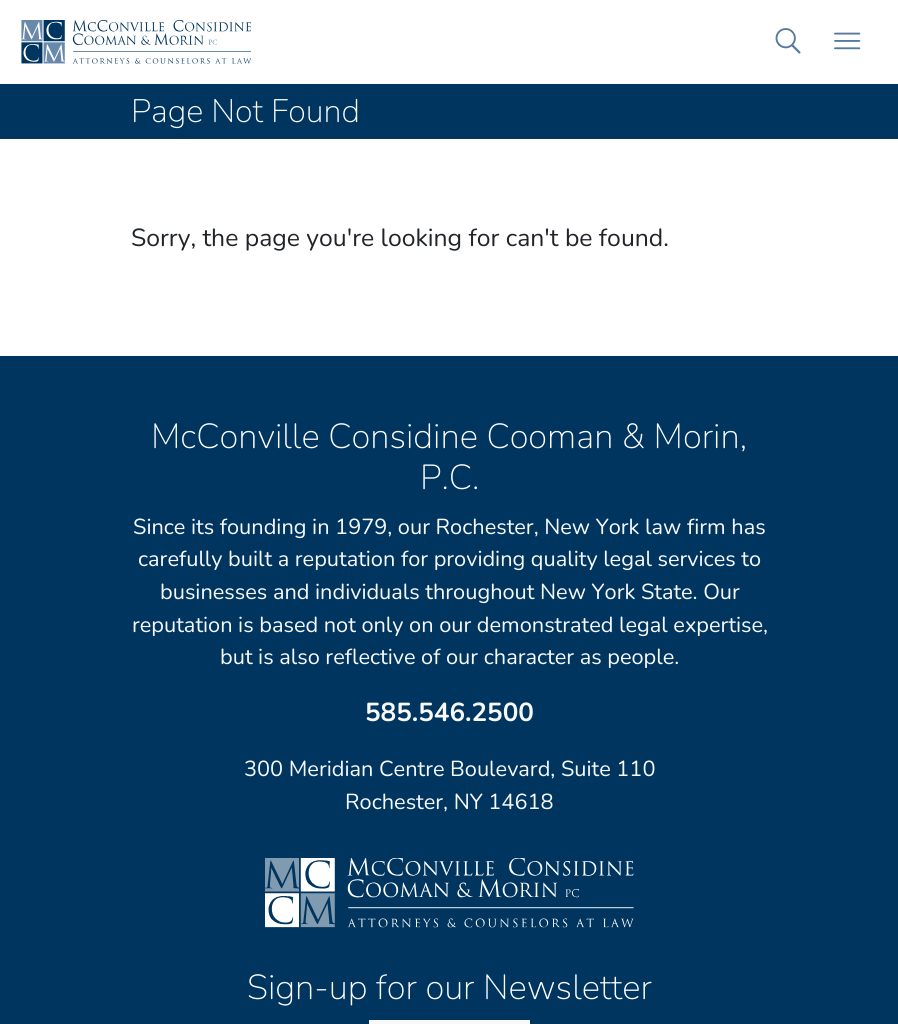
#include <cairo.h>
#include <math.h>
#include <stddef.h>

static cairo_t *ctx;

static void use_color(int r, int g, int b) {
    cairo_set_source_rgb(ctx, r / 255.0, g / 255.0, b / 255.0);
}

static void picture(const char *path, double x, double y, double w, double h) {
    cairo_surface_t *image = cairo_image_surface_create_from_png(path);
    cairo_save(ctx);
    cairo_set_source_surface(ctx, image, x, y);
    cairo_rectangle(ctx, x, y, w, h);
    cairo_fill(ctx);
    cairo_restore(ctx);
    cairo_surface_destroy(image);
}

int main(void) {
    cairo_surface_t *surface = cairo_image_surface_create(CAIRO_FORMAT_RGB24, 898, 1024);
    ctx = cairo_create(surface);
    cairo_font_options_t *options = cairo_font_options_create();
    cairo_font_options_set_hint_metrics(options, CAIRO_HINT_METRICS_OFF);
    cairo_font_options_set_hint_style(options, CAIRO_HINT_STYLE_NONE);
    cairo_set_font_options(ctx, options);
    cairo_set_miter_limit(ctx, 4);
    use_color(255, 255, 255);
    cairo_paint(ctx);
    picture("img1.png", 21, 20, 230, 44);
    picture("img2.png", 775, 28, 26, 26);
    picture("img3.png", 834, 32, 27, 18);
    use_color(0, 53, 95);
    cairo_rectangle(ctx, 0, 84, 898, 55);
    cairo_fill(ctx);
    cairo_select_font_face(ctx, "Nunito ExtraLight", CAIRO_FONT_SLANT_NORMAL, CAIRO_FONT_WEIGHT_NORMAL);
    cairo_set_font_size(ctx, 32.5);
    use_color(255, 255, 255);
    cairo_move_to(ctx, 131, 122);
    cairo_show_text(ctx, "Page Not Found");
    cairo_select_font_face(ctx, "Nunito", CAIRO_FONT_SLANT_NORMAL, CAIRO_FONT_WEIGHT_NORMAL);
    cairo_set_font_size(ctx, 24.75);
    use_color(33, 37, 41);
    cairo_move_to(ctx, 131, 246);
    cairo_show_text(ctx, "Sorry, the page you're looking for can't be found.");
    use_color(0, 53, 95);
    cairo_rectangle(ctx, 0, 356, 898, 668);
    cairo_fill(ctx);
    cairo_select_font_face(ctx, "Nunito ExtraLight", CAIRO_FONT_SLANT_NORMAL, CAIRO_FONT_WEIGHT_NORMAL);
    cairo_set_font_size(ctx, 34.8);
    use_color(255, 255, 255);
    cairo_move_to(ctx, 151, 448);
    cairo_show_text(ctx, "McConville Considine Cooman & Morin,");
    cairo_move_to(ctx, 420, 489);
    cairo_show_text(ctx, "P.C.");
    cairo_select_font_face(ctx, "Nunito", CAIRO_FONT_SLANT_NORMAL, CAIRO_FONT_WEIGHT_NORMAL);
    cairo_set_font_size(ctx, 21.75);
    use_color(248, 249, 250);
    cairo_move_to(ctx, 133, 534);
    cairo_show_text(ctx, "Since its founding in 1979, our Rochester, New York law firm has");
    cairo_move_to(ctx, 138, 566);
    cairo_show_text(ctx, "carefully built a reputation for providing quality legal services to");
    cairo_move_to(ctx, 160, 599);
    cairo_show_text(ctx, "businesses and individuals throughout New York State. Our");
    cairo_move_to(ctx, 132, 632);
    cairo_show_text(ctx, "reputation is based not only on our demonstrated legal expertise,");
    cairo_move_to(ctx, 220, 664);
    cairo_show_text(ctx, "but is also reflective of our character as people.");
    cairo_select_font_face(ctx, "Nunito", CAIRO_FONT_SLANT_NORMAL, CAIRO_FONT_WEIGHT_BOLD);
    cairo_set_font_size(ctx, 26);
    cairo_move_to(ctx, 365, 721);
    cairo_show_text(ctx, "585.546.2500");
    cairo_select_font_face(ctx, "Nunito", CAIRO_FONT_SLANT_NORMAL, CAIRO_FONT_WEIGHT_NORMAL);
    cairo_set_font_size(ctx, 21.75);
    cairo_move_to(ctx, 244, 776);
    cairo_show_text(ctx, "300 Meridian Centre Boulevard, Suite 110");
    cairo_move_to(ctx, 345, 809);
    cairo_show_text(ctx, "Rochester, NY 14618");
    picture("img4.png", 265, 858, 369, 70);
    cairo_select_font_face(ctx, "Nunito ExtraLight", CAIRO_FONT_SLANT_NORMAL, CAIRO_FONT_WEIGHT_NORMAL);
    cairo_set_font_size(ctx, 34.8);
    use_color(255, 255, 255);
    cairo_move_to(ctx, 247, 999);
    cairo_show_text(ctx, "Sign-up for our Newsletter");
    use_color(248, 249, 250);
    cairo_rectangle(ctx, 369, 1020, 161, 4);
    cairo_fill(ctx);
    cairo_surface_write_to_png(surface, "result.png");
    cairo_font_options_destroy(options);
    cairo_destroy(ctx);
    cairo_surface_destroy(surface);
    return 0;
}
